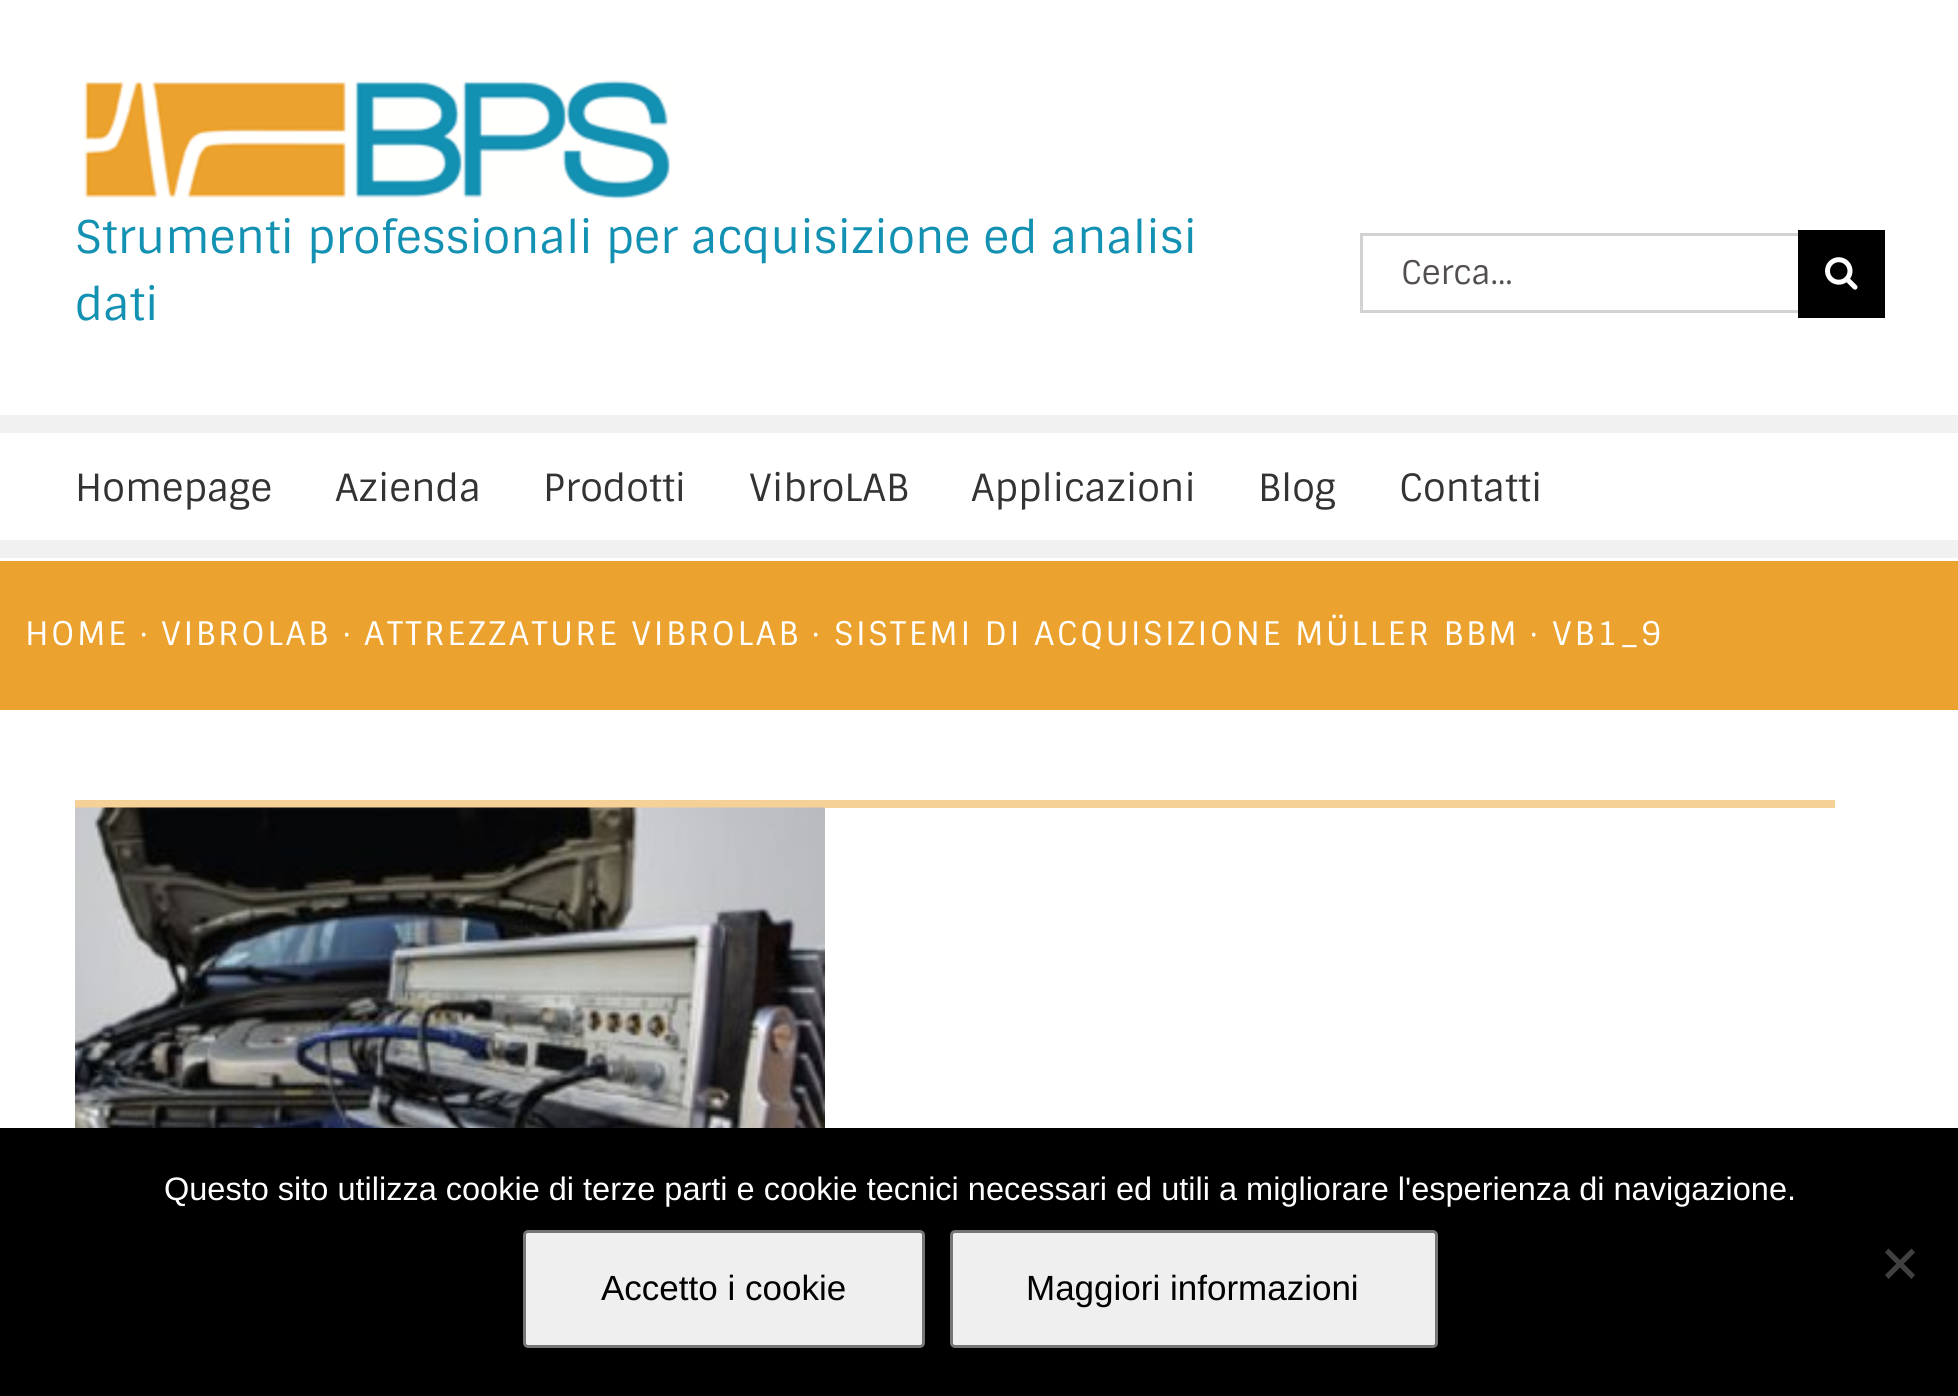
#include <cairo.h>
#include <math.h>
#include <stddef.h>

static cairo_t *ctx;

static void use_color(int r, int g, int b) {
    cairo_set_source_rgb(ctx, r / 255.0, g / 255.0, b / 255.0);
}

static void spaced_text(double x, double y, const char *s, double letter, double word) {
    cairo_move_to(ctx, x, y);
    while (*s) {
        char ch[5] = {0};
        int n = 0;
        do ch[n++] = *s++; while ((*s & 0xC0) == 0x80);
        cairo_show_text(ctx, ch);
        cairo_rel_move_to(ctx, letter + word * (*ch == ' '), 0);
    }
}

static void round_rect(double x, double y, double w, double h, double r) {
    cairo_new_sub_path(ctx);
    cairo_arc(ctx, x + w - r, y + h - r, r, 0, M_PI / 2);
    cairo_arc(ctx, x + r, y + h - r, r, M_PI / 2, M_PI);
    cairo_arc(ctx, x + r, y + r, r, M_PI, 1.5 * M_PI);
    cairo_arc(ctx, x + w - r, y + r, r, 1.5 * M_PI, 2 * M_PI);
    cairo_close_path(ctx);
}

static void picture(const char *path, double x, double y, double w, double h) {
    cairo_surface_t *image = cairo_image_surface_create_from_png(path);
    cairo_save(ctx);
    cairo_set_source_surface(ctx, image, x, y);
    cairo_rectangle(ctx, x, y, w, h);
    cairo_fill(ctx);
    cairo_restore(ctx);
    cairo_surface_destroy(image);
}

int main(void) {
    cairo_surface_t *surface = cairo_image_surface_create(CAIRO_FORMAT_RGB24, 1958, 1396);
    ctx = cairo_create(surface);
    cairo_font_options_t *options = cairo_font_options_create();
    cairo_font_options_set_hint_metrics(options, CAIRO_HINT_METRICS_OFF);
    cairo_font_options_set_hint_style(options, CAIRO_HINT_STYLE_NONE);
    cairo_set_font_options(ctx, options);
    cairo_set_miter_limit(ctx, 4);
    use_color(255, 255, 255);
    cairo_paint(ctx);
    picture("img1.png", 84, 80, 586, 120);
    cairo_select_font_face(ctx, "Sintony", CAIRO_FONT_SLANT_NORMAL, CAIRO_FONT_WEIGHT_NORMAL);
    cairo_set_font_size(ctx, 45);
    use_color(19, 145, 179);
    cairo_move_to(ctx, 75, 253);
    cairo_show_text(ctx, "Strumenti professionali per acquisizione ed analisi");
    cairo_move_to(ctx, 75, 320);
    cairo_show_text(ctx, "dati");
    use_color(210, 210, 210);
    cairo_rectangle(ctx, 1360, 233, 438, 3);
    cairo_fill(ctx);
    cairo_rectangle(ctx, 1360, 310, 438, 3);
    cairo_fill(ctx);
    cairo_rectangle(ctx, 1360, 233, 3, 80);
    cairo_fill(ctx);
    cairo_set_font_size(ctx, 32.5);
    use_color(84, 79, 79);
    cairo_move_to(ctx, 1401, 284);
    cairo_show_text(ctx, "Cerca...");
    use_color(0, 0, 0);
    cairo_rectangle(ctx, 1798, 230, 87, 88);
    cairo_fill(ctx);
    picture("img2.png", 1825, 257, 33, 33);
    use_color(241, 241, 241);
    cairo_rectangle(ctx, 0, 415, 1958, 18);
    cairo_fill(ctx);
    cairo_rectangle(ctx, 0, 540, 1958, 18);
    cairo_fill(ctx);
    cairo_set_font_size(ctx, 37.5);
    use_color(51, 51, 51);
    cairo_move_to(ctx, 75, 501);
    cairo_show_text(ctx, "Homepage");
    cairo_move_to(ctx, 335, 501);
    cairo_show_text(ctx, "Azienda");
    cairo_move_to(ctx, 543, 501);
    cairo_show_text(ctx, "Prodotti");
    cairo_move_to(ctx, 749, 501);
    cairo_show_text(ctx, "VibroLAB");
    cairo_move_to(ctx, 971, 501);
    cairo_show_text(ctx, "Applicazioni");
    cairo_move_to(ctx, 1258, 501);
    cairo_show_text(ctx, "Blog");
    cairo_move_to(ctx, 1399, 501);
    cairo_show_text(ctx, "Contatti");
    use_color(236, 162, 46);
    cairo_rectangle(ctx, 0, 561, 1958, 149);
    cairo_fill(ctx);
    cairo_set_font_size(ctx, 32.5);
    use_color(255, 255, 255);
    spaced_text(25, 645, "HOME", 2.5, 0);
    spaced_text(140, 645, "·", 2.5, 0);
    spaced_text(161, 645, "VIBROLAB", 2.5, 0);
    spaced_text(343, 645, "·", 2.5, 0);
    spaced_text(364, 645, "ATTREZZATURE VIBROLAB", 2.5, 0);
    spaced_text(812, 645, "·", 2.5, 0);
    spaced_text(834, 645, "SISTEMI DI ACQUISIZIONE MÜLLER BBM", 2.5, 0);
    spaced_text(1530, 645, "·", 2.5, 0);
    spaced_text(1552, 645, "VB1_9", 2.5, 0);
    use_color(246, 209, 151);
    cairo_rectangle(ctx, 75, 800, 1760, 8);
    cairo_fill(ctx);
    picture("img3.png", 75, 807, 750, 321);
    use_color(0, 0, 0);
    cairo_rectangle(ctx, 0, 1128, 1958, 268);
    cairo_fill(ctx);
    cairo_select_font_face(ctx, "Liberation Sans", CAIRO_FONT_SLANT_NORMAL, CAIRO_FONT_WEIGHT_NORMAL);
    use_color(255, 255, 255);
    cairo_move_to(ctx, 164, 1200);
    cairo_show_text(ctx, "Questo sito utilizza cookie di terze parti e cookie tecnici necessari ed utili a migliorare l'esperienza di navigazione.");
    use_color(64, 64, 64);
    cairo_new_path(ctx);
    cairo_move_to(ctx, 1911.5, 1248.5);
    cairo_line_to(ctx, 1915, 1252.5);
    cairo_line_to(ctx, 1888.5, 1279);
    cairo_line_to(ctx, 1885, 1275);
    cairo_close_path(ctx);
    cairo_fill(ctx);
    cairo_new_path(ctx);
    cairo_move_to(ctx, 1885, 1252.5);
    cairo_line_to(ctx, 1888.5, 1248.5);
    cairo_line_to(ctx, 1915, 1275);
    cairo_line_to(ctx, 1911.5, 1279);
    cairo_close_path(ctx);
    cairo_fill(ctx);
    use_color(239, 239, 239);
    round_rect(524.5, 1231.5, 399, 115, 3.5);
    cairo_fill_preserve(ctx);
    use_color(118, 118, 118);
    cairo_set_line_width(ctx, 3);
    cairo_stroke(ctx);
    cairo_set_font_size(ctx, 35);
    use_color(0, 0, 0);
    cairo_move_to(ctx, 601, 1300);
    cairo_show_text(ctx, "Accetto i cookie");
    use_color(239, 239, 239);
    round_rect(951.5, 1231.5, 485, 115, 3.5);
    cairo_fill_preserve(ctx);
    use_color(118, 118, 118);
    cairo_stroke(ctx);
    use_color(0, 0, 0);
    cairo_move_to(ctx, 1026, 1300);
    cairo_show_text(ctx, "Maggiori informazioni");
    cairo_surface_write_to_png(surface, "result.png");
    cairo_font_options_destroy(options);
    cairo_destroy(ctx);
    cairo_surface_destroy(surface);
    return 0;
}
